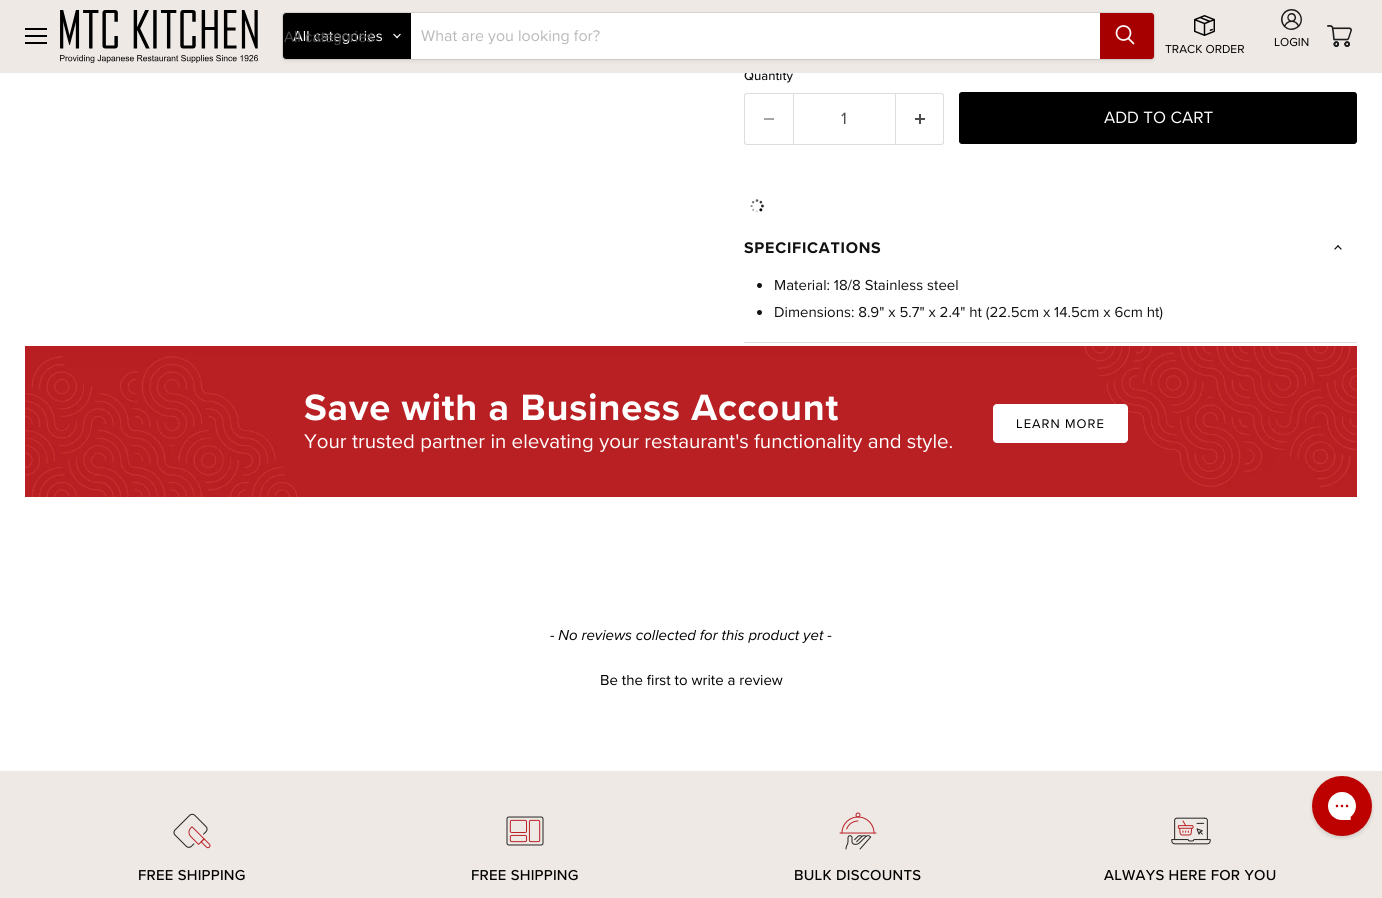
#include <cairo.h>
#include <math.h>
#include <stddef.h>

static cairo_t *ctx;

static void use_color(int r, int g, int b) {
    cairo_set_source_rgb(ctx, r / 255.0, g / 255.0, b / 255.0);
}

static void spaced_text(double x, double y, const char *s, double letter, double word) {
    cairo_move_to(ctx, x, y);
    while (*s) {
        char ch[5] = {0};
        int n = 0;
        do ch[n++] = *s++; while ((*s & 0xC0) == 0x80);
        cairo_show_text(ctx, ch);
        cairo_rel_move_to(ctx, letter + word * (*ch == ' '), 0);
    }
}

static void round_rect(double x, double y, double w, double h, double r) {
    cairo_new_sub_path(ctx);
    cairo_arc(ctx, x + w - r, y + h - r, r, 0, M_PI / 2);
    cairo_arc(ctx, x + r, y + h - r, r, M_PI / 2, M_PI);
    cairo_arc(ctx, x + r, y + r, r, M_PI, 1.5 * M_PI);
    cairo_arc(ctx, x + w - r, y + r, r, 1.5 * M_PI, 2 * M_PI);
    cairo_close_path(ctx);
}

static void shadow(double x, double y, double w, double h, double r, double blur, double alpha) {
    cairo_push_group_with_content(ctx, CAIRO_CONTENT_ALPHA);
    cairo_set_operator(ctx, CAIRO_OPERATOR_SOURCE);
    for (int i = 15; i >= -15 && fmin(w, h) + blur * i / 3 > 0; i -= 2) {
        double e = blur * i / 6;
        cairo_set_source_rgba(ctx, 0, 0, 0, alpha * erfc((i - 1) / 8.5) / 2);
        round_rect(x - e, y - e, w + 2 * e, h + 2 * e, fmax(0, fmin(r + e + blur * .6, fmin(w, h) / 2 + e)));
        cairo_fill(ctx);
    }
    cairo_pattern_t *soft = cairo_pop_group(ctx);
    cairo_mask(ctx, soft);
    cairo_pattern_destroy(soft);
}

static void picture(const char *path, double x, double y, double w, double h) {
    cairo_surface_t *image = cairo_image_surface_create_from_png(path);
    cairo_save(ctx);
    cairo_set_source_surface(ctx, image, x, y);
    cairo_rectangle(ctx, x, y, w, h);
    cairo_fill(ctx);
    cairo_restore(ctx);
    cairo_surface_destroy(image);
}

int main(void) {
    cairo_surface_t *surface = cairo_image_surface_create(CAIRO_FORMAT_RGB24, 1382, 898);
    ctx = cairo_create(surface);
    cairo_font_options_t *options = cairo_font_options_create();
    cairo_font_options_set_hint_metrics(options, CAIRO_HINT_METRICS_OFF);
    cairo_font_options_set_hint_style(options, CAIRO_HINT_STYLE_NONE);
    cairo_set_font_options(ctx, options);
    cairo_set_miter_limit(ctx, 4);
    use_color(255, 255, 255);
    cairo_paint(ctx);
    cairo_select_font_face(ctx, "Proxima Nova Medium", CAIRO_FONT_SLANT_NORMAL, CAIRO_FONT_WEIGHT_NORMAL);
    cairo_set_font_size(ctx, 13);
    use_color(18, 18, 18);
    cairo_move_to(ctx, 744, 80);
    cairo_show_text(ctx, "Quantity");
    use_color(239, 233, 229);
    cairo_rectangle(ctx, 0, 0, 1382, 73);
    cairo_fill(ctx);
    use_color(0, 0, 0);
    cairo_rectangle(ctx, 25, 28, 22, 2);
    cairo_fill(ctx);
    cairo_rectangle(ctx, 25, 35, 22, 2);
    cairo_fill(ctx);
    cairo_rectangle(ctx, 25, 42, 22, 2);
    cairo_fill(ctx);
    picture("img1.png", 60, 10, 198, 53);
    use_color(128, 128, 128);
    shadow(282, 14, 873, 48, 4, 1.5, 0.11);
    round_rect(282.5, 12.5, 872, 47, 3.5);
    cairo_set_source_rgba(ctx, 0.502, 0.502, 0.502, 0.2);
    cairo_set_line_width(ctx, 1);
    cairo_stroke(ctx);
    use_color(0, 0, 0);
    cairo_new_path(ctx);
    cairo_move_to(ctx, 286, 13);
    cairo_line_to(ctx, 411, 13);
    cairo_line_to(ctx, 411, 59);
    cairo_line_to(ctx, 286, 59);
    cairo_curve_to(ctx, 284.5, 59, 283, 57.5, 283, 56);
    cairo_line_to(ctx, 283, 16);
    cairo_curve_to(ctx, 283, 14.5, 284.5, 13, 286, 13);
    cairo_close_path(ctx);
    cairo_fill(ctx);
    cairo_select_font_face(ctx, "Proxima Nova", CAIRO_FONT_SLANT_NORMAL, CAIRO_FONT_WEIGHT_NORMAL);
    cairo_set_font_size(ctx, 15);
    use_color(255, 255, 255);
    cairo_move_to(ctx, 293, 41);
    cairo_show_text(ctx, "All categories");
    cairo_select_font_face(ctx, "Liberation Sans", CAIRO_FONT_SLANT_NORMAL, CAIRO_FONT_WEIGHT_NORMAL);
    use_color(71, 71, 71);
    cairo_move_to(ctx, 284, 42);
    cairo_show_text(ctx, "All categories");
    picture("img2.png", 393, 33, 8, 6);
    use_color(255, 255, 255);
    cairo_rectangle(ctx, 411, 13, 689, 46);
    cairo_fill(ctx);
    cairo_select_font_face(ctx, "Proxima Nova", CAIRO_FONT_SLANT_NORMAL, CAIRO_FONT_WEIGHT_NORMAL);
    cairo_set_font_size(ctx, 16);
    use_color(185, 185, 185);
    cairo_move_to(ctx, 421, 41);
    cairo_show_text(ctx, "What are you looking for?");
    use_color(166, 0, 0);
    cairo_new_path(ctx);
    cairo_move_to(ctx, 1100.5, 13.5);
    cairo_line_to(ctx, 1151, 13.5);
    cairo_curve_to(ctx, 1152.5, 13.5, 1153.5, 14.5, 1153.5, 16);
    cairo_line_to(ctx, 1153.5, 56);
    cairo_curve_to(ctx, 1153.5, 57.5, 1152.5, 58.5, 1151, 58.5);
    cairo_line_to(ctx, 1100.5, 58.5);
    cairo_close_path(ctx);
    cairo_fill_preserve(ctx);
    cairo_stroke(ctx);
    cairo_new_path(ctx);
    cairo_move_to(ctx, 1133.5, 43.5);
    cairo_line_to(ctx, 1128.5, 38.5);
    use_color(255, 255, 255);
    cairo_set_line_width(ctx, 1.7);
    cairo_set_line_cap(ctx, CAIRO_LINE_CAP_ROUND);
    cairo_stroke(ctx);
    cairo_arc(ctx, 1123.5, 33, 7, 0, 2 * M_PI);
    cairo_set_line_cap(ctx, CAIRO_LINE_CAP_BUTT);
    cairo_stroke(ctx);
    picture("img3.png", 1281, 9, 21, 21);
    cairo_set_font_size(ctx, 12);
    use_color(0, 0, 0);
    cairo_move_to(ctx, 1274, 46);
    cairo_show_text(ctx, "LOGIN");
    picture("img4.png", 1327, 25, 25, 22);
    picture("img5.png", 1194, 15, 21, 21);
    cairo_move_to(ctx, 1165, 53);
    cairo_show_text(ctx, "TRACK ORDER");
    use_color(221, 221, 221);
    cairo_set_fill_rule(ctx, CAIRO_FILL_RULE_EVEN_ODD);
    cairo_new_path(ctx);
    cairo_move_to(ctx, 747, 93);
    cairo_line_to(ctx, 793, 93);
    cairo_line_to(ctx, 793, 145);
    cairo_line_to(ctx, 747, 145);
    cairo_curve_to(ctx, 745, 145, 744, 144, 744, 142);
    cairo_line_to(ctx, 744, 96);
    cairo_curve_to(ctx, 744, 94, 745, 93, 747, 93);
    cairo_close_path(ctx);
    cairo_move_to(ctx, 747, 94);
    cairo_line_to(ctx, 793, 94);
    cairo_line_to(ctx, 793, 144);
    cairo_line_to(ctx, 747, 144);
    cairo_curve_to(ctx, 746, 144, 745, 143, 745, 142);
    cairo_line_to(ctx, 745, 96);
    cairo_curve_to(ctx, 745, 95, 746, 94, 747, 94);
    cairo_close_path(ctx);
    cairo_fill(ctx);
    use_color(166, 166, 166);
    cairo_rectangle(ctx, 764, 118, 10, 2);
    cairo_fill(ctx);
    cairo_rectangle(ctx, 793.5, 93.5, 102, 51);
    use_color(221, 221, 221);
    cairo_set_line_width(ctx, 1);
    cairo_stroke(ctx);
    cairo_set_font_size(ctx, 17);
    use_color(77, 77, 77);
    cairo_move_to(ctx, 841, 124);
    cairo_show_text(ctx, "1");
    use_color(221, 221, 221);
    cairo_new_path(ctx);
    cairo_move_to(ctx, 896, 93);
    cairo_line_to(ctx, 941, 93);
    cairo_curve_to(ctx, 943, 93, 944, 94, 944, 96);
    cairo_line_to(ctx, 944, 142);
    cairo_curve_to(ctx, 944, 144, 943, 145, 941, 145);
    cairo_line_to(ctx, 896, 145);
    cairo_close_path(ctx);
    cairo_move_to(ctx, 896, 94);
    cairo_line_to(ctx, 941, 94);
    cairo_curve_to(ctx, 942, 94, 943, 95, 943, 96);
    cairo_line_to(ctx, 943, 142);
    cairo_curve_to(ctx, 943, 143, 942, 144, 941, 144);
    cairo_line_to(ctx, 896, 144);
    cairo_close_path(ctx);
    cairo_fill(ctx);
    picture("img6.png", 915, 114, 10, 10);
    use_color(0, 0, 0);
    round_rect(959.5, 92.5, 397, 51, 2.5);
    cairo_fill_preserve(ctx);
    cairo_stroke(ctx);
    use_color(255, 255, 255);
    cairo_move_to(ctx, 1104, 123);
    cairo_show_text(ctx, "ADD TO CART");
    picture("img7.png", 750, 199, 14, 14);
    use_color(221, 221, 221);
    cairo_rectangle(ctx, 744, 342, 613, 1);
    cairo_fill(ctx);
    cairo_select_font_face(ctx, "Proxima Nova", CAIRO_FONT_SLANT_NORMAL, CAIRO_FONT_WEIGHT_BOLD);
    cairo_set_font_size(ctx, 16);
    use_color(18, 18, 18);
    spaced_text(744, 253, "SPECIFICATIONS", 0.75, 0);
    picture("img8.png", 1334, 245, 8, 5);
    cairo_arc(ctx, 759.5, 285.5, 2.5, 0, 2 * M_PI);
    cairo_fill(ctx);
    cairo_select_font_face(ctx, "Proxima Nova", CAIRO_FONT_SLANT_NORMAL, CAIRO_FONT_WEIGHT_NORMAL);
    cairo_set_font_size(ctx, 15);
    cairo_move_to(ctx, 774, 290);
    cairo_show_text(ctx, "Material: 18/8 Stainless steel");
    cairo_new_path(ctx);
    cairo_arc(ctx, 759.5, 312.5, 2.5, 0, 2 * M_PI);
    cairo_fill(ctx);
    cairo_move_to(ctx, 774, 317);
    cairo_show_text(ctx, "Dimensions: 8.9\" x 5.7\" x 2.4\" ht (22.5cm x 14.5cm x 6cm ht)");
    picture("img9.png", 25, 346, 1332, 151);
    cairo_select_font_face(ctx, "Proxima Nova", CAIRO_FONT_SLANT_NORMAL, CAIRO_FONT_WEIGHT_BOLD);
    cairo_set_font_size(ctx, 38);
    use_color(255, 255, 255);
    spaced_text(304, 420, "Save with a Business Account", 0.75, 0);
    cairo_select_font_face(ctx, "Proxima Nova", CAIRO_FONT_SLANT_NORMAL, CAIRO_FONT_WEIGHT_NORMAL);
    cairo_set_font_size(ctx, 20.5);
    cairo_move_to(ctx, 304, 448);
    cairo_show_text(ctx, "Your trusted partner in elevating your restaurant's functionality and style.");
    round_rect(993, 404, 135, 39, 4);
    cairo_fill(ctx);
    cairo_set_font_size(ctx, 13);
    use_color(0, 0, 0);
    spaced_text(1016, 428, "LEARN MORE", 1, 0);
    cairo_select_font_face(ctx, "Proxima Nova", CAIRO_FONT_SLANT_ITALIC, CAIRO_FONT_WEIGHT_NORMAL);
    cairo_set_font_size(ctx, 15);
    cairo_move_to(ctx, 550, 640);
    cairo_show_text(ctx, "- No reviews collected for this product yet -");
    cairo_select_font_face(ctx, "Proxima Nova", CAIRO_FONT_SLANT_NORMAL, CAIRO_FONT_WEIGHT_NORMAL);
    cairo_move_to(ctx, 600, 685);
    cairo_show_text(ctx, "Be the first to write a review");
    use_color(239, 233, 229);
    cairo_rectangle(ctx, 0, 771, 1382, 127);
    cairo_fill(ctx);
    picture("img10.png", 173, 813, 38, 36);
    cairo_select_font_face(ctx, "Proxima Nova Medium", CAIRO_FONT_SLANT_NORMAL, CAIRO_FONT_WEIGHT_NORMAL);
    cairo_set_font_size(ctx, 14.9);
    use_color(0, 0, 0);
    spaced_text(138, 880, "FREE SHIPPING", 0.25, 0);
    picture("img11.png", 506, 816, 38, 30);
    spaced_text(471, 880, "FREE SHIPPING", 0.25, 0);
    picture("img12.png", 839, 812, 38, 38);
    spaced_text(794, 880, "BULK DISCOUNTS", 0.25, 0);
    picture("img13.png", 1171, 817, 40, 28);
    spaced_text(1104, 880, "ALWAYS HERE FOR YOU", 0.25, 0);
    picture("img14.png", 1310, 776, 64, 64);
    cairo_surface_write_to_png(surface, "result.png");
    cairo_font_options_destroy(options);
    cairo_destroy(ctx);
    cairo_surface_destroy(surface);
    return 0;
}
